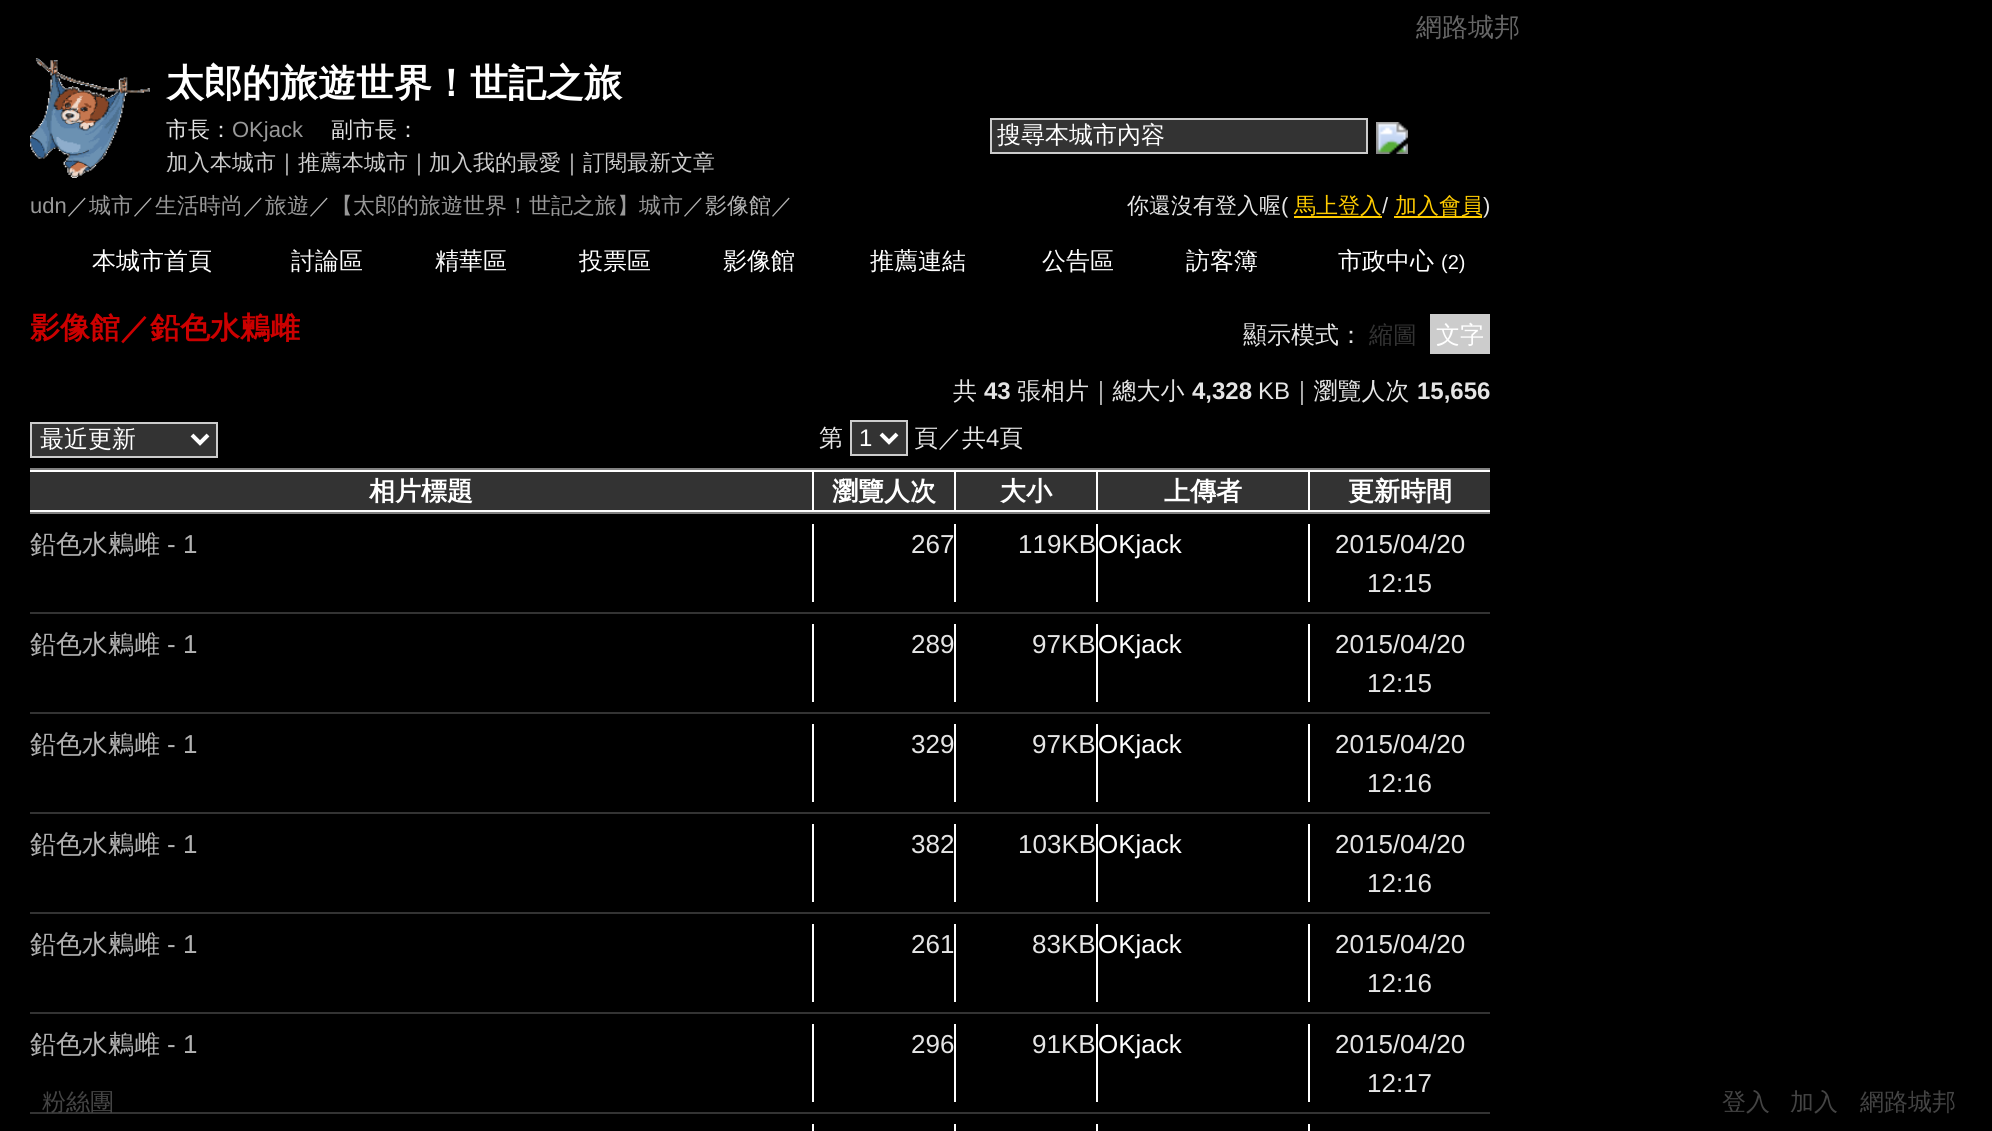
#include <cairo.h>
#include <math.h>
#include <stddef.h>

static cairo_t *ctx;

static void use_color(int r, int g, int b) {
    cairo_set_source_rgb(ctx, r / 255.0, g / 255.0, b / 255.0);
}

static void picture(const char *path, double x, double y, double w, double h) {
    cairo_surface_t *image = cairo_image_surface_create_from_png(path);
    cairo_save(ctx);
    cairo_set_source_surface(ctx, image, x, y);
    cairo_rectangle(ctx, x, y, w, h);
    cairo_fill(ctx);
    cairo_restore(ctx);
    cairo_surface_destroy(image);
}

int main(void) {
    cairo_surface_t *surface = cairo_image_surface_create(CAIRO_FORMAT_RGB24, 1992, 1131);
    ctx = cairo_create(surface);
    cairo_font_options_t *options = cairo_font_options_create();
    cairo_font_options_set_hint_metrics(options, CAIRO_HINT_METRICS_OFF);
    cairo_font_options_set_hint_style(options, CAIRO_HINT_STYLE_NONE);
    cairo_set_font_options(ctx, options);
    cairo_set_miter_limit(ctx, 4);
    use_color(0, 0, 0);
    cairo_paint(ctx);
    cairo_select_font_face(ctx, "WenQuanYi Zen Hei Medium", CAIRO_FONT_SLANT_NORMAL, CAIRO_FONT_WEIGHT_NORMAL);
    cairo_set_font_size(ctx, 26);
    use_color(102, 102, 102);
    cairo_move_to(ctx, 1416, 36);
    cairo_show_text(ctx, "網路城邦");
    picture("img1.png", 30, 58, 120, 120);
    cairo_select_font_face(ctx, "WenQuanYi Zen Hei", CAIRO_FONT_SLANT_NORMAL, CAIRO_FONT_WEIGHT_BOLD);
    cairo_set_font_size(ctx, 38);
    use_color(255, 255, 255);
    cairo_move_to(ctx, 166, 96);
    cairo_show_text(ctx, "太郎的旅遊世界！世記之旅");
    cairo_select_font_face(ctx, "WenQuanYi Zen Hei Medium", CAIRO_FONT_SLANT_NORMAL, CAIRO_FONT_WEIGHT_NORMAL);
    cairo_set_font_size(ctx, 22);
    use_color(229, 229, 229);
    cairo_move_to(ctx, 166, 137);
    cairo_show_text(ctx, "市長：");
    cairo_select_font_face(ctx, "Liberation Sans", CAIRO_FONT_SLANT_NORMAL, CAIRO_FONT_WEIGHT_NORMAL);
    use_color(153, 153, 153);
    cairo_move_to(ctx, 232, 137);
    cairo_show_text(ctx, "OKjack");
    cairo_select_font_face(ctx, "WenQuanYi Zen Hei Medium", CAIRO_FONT_SLANT_NORMAL, CAIRO_FONT_WEIGHT_NORMAL);
    use_color(229, 229, 229);
    cairo_move_to(ctx, 331, 137);
    cairo_show_text(ctx, "副市長：");
    use_color(204, 204, 204);
    cairo_move_to(ctx, 166, 170);
    cairo_show_text(ctx, "加入本城市");
    use_color(229, 229, 229);
    cairo_move_to(ctx, 276, 170);
    cairo_show_text(ctx, "｜");
    use_color(204, 204, 204);
    cairo_move_to(ctx, 298, 170);
    cairo_show_text(ctx, "推薦本城市");
    use_color(229, 229, 229);
    cairo_move_to(ctx, 408, 170);
    cairo_show_text(ctx, "｜");
    use_color(204, 204, 204);
    cairo_move_to(ctx, 429, 170);
    cairo_show_text(ctx, "加入我的最愛");
    use_color(229, 229, 229);
    cairo_move_to(ctx, 561, 170);
    cairo_show_text(ctx, "｜");
    use_color(204, 204, 204);
    cairo_move_to(ctx, 583, 170);
    cairo_show_text(ctx, "訂閱最新文章");
    use_color(51, 51, 51);
    cairo_rectangle(ctx, 991, 119, 376, 34);
    cairo_fill_preserve(ctx);
    use_color(204, 204, 204);
    cairo_stroke(ctx);
    cairo_set_font_size(ctx, 24);
    use_color(255, 255, 255);
    cairo_move_to(ctx, 997, 143);
    cairo_show_text(ctx, "搜尋本城市內容");
    picture("img2.png", 1376, 122, 32, 32);
    cairo_select_font_face(ctx, "Liberation Sans", CAIRO_FONT_SLANT_NORMAL, CAIRO_FONT_WEIGHT_NORMAL);
    cairo_set_font_size(ctx, 22);
    use_color(153, 153, 153);
    cairo_move_to(ctx, 30, 213);
    cairo_show_text(ctx, "udn");
    cairo_select_font_face(ctx, "WenQuanYi Zen Hei Medium", CAIRO_FONT_SLANT_NORMAL, CAIRO_FONT_WEIGHT_NORMAL);
    use_color(179, 179, 179);
    cairo_move_to(ctx, 67, 213);
    cairo_show_text(ctx, "／");
    use_color(153, 153, 153);
    cairo_move_to(ctx, 89, 213);
    cairo_show_text(ctx, "城市");
    use_color(179, 179, 179);
    cairo_move_to(ctx, 133, 213);
    cairo_show_text(ctx, "／");
    use_color(153, 153, 153);
    cairo_move_to(ctx, 155, 213);
    cairo_show_text(ctx, "生活時尚");
    use_color(179, 179, 179);
    cairo_move_to(ctx, 243, 213);
    cairo_show_text(ctx, "／");
    use_color(153, 153, 153);
    cairo_move_to(ctx, 265, 213);
    cairo_show_text(ctx, "旅遊");
    use_color(179, 179, 179);
    cairo_move_to(ctx, 309, 213);
    cairo_show_text(ctx, "／");
    use_color(153, 153, 153);
    cairo_move_to(ctx, 331, 213);
    cairo_show_text(ctx, "【太郎的旅遊世界！世記之旅】城市");
    use_color(179, 179, 179);
    cairo_move_to(ctx, 683, 213);
    cairo_show_text(ctx, "／影像館／");
    use_color(229, 229, 229);
    cairo_move_to(ctx, 1127, 213);
    cairo_show_text(ctx, "你還沒有登入喔");
    cairo_select_font_face(ctx, "Liberation Sans", CAIRO_FONT_SLANT_NORMAL, CAIRO_FONT_WEIGHT_NORMAL);
    cairo_move_to(ctx, 1281, 213);
    cairo_show_text(ctx, "(");
    use_color(255, 204, 0);
    cairo_rectangle(ctx, 1294, 216, 88, 2);
    cairo_fill(ctx);
    cairo_select_font_face(ctx, "WenQuanYi Zen Hei Medium", CAIRO_FONT_SLANT_NORMAL, CAIRO_FONT_WEIGHT_NORMAL);
    cairo_move_to(ctx, 1294, 213);
    cairo_show_text(ctx, "馬上登入");
    cairo_select_font_face(ctx, "Liberation Sans", CAIRO_FONT_SLANT_NORMAL, CAIRO_FONT_WEIGHT_NORMAL);
    use_color(229, 229, 229);
    cairo_move_to(ctx, 1382, 213);
    cairo_show_text(ctx, "/");
    use_color(255, 204, 0);
    cairo_rectangle(ctx, 1394, 216, 88, 2);
    cairo_fill(ctx);
    cairo_select_font_face(ctx, "WenQuanYi Zen Hei Medium", CAIRO_FONT_SLANT_NORMAL, CAIRO_FONT_WEIGHT_NORMAL);
    cairo_move_to(ctx, 1395, 213);
    cairo_show_text(ctx, "加入會員");
    cairo_select_font_face(ctx, "Liberation Sans", CAIRO_FONT_SLANT_NORMAL, CAIRO_FONT_WEIGHT_NORMAL);
    use_color(229, 229, 229);
    cairo_move_to(ctx, 1483, 213);
    cairo_show_text(ctx, ")");
    cairo_select_font_face(ctx, "WenQuanYi Zen Hei Medium", CAIRO_FONT_SLANT_NORMAL, CAIRO_FONT_WEIGHT_NORMAL);
    cairo_set_font_size(ctx, 24);
    use_color(255, 255, 255);
    cairo_move_to(ctx, 92, 269);
    cairo_show_text(ctx, "本城市首頁");
    cairo_move_to(ctx, 291, 269);
    cairo_show_text(ctx, "討論區");
    cairo_move_to(ctx, 435, 269);
    cairo_show_text(ctx, "精華區");
    cairo_move_to(ctx, 579, 269);
    cairo_show_text(ctx, "投票區");
    cairo_move_to(ctx, 723, 269);
    cairo_show_text(ctx, "影像館");
    cairo_move_to(ctx, 870, 269);
    cairo_show_text(ctx, "推薦連結");
    cairo_move_to(ctx, 1042, 269);
    cairo_show_text(ctx, "公告區");
    cairo_move_to(ctx, 1186, 269);
    cairo_show_text(ctx, "訪客簿");
    cairo_move_to(ctx, 1338, 269);
    cairo_show_text(ctx, "市政中心");
    cairo_select_font_face(ctx, "Liberation Sans", CAIRO_FONT_SLANT_NORMAL, CAIRO_FONT_WEIGHT_NORMAL);
    cairo_set_font_size(ctx, 20);
    cairo_move_to(ctx, 1441, 269);
    cairo_show_text(ctx, "(2)");
    cairo_select_font_face(ctx, "WenQuanYi Zen Hei", CAIRO_FONT_SLANT_NORMAL, CAIRO_FONT_WEIGHT_BOLD);
    cairo_set_font_size(ctx, 30);
    use_color(204, 0, 0);
    cairo_move_to(ctx, 30, 338);
    cairo_show_text(ctx, "影像館／鉛色水鶫雌");
    cairo_select_font_face(ctx, "WenQuanYi Zen Hei Medium", CAIRO_FONT_SLANT_NORMAL, CAIRO_FONT_WEIGHT_NORMAL);
    cairo_set_font_size(ctx, 24);
    use_color(229, 229, 229);
    cairo_move_to(ctx, 1243, 343);
    cairo_show_text(ctx, "顯示模式：");
    use_color(51, 51, 51);
    cairo_move_to(ctx, 1369, 343);
    cairo_show_text(ctx, "縮圖");
    use_color(204, 204, 204);
    cairo_rectangle(ctx, 1430, 314, 60, 40);
    cairo_fill(ctx);
    use_color(255, 255, 255);
    cairo_move_to(ctx, 1436, 343);
    cairo_show_text(ctx, "文字");
    use_color(229, 229, 229);
    cairo_move_to(ctx, 953, 399);
    cairo_show_text(ctx, "共");
    cairo_select_font_face(ctx, "Liberation Sans", CAIRO_FONT_SLANT_NORMAL, CAIRO_FONT_WEIGHT_BOLD);
    cairo_move_to(ctx, 984, 399);
    cairo_show_text(ctx, "43");
    cairo_select_font_face(ctx, "WenQuanYi Zen Hei Medium", CAIRO_FONT_SLANT_NORMAL, CAIRO_FONT_WEIGHT_NORMAL);
    cairo_move_to(ctx, 1017, 399);
    cairo_show_text(ctx, "張相片｜總大小");
    cairo_select_font_face(ctx, "Liberation Sans", CAIRO_FONT_SLANT_NORMAL, CAIRO_FONT_WEIGHT_BOLD);
    cairo_move_to(ctx, 1192, 399);
    cairo_show_text(ctx, "4,328");
    cairo_select_font_face(ctx, "Liberation Sans", CAIRO_FONT_SLANT_NORMAL, CAIRO_FONT_WEIGHT_NORMAL);
    cairo_move_to(ctx, 1258, 399);
    cairo_show_text(ctx, "KB");
    cairo_select_font_face(ctx, "WenQuanYi Zen Hei Medium", CAIRO_FONT_SLANT_NORMAL, CAIRO_FONT_WEIGHT_NORMAL);
    cairo_move_to(ctx, 1290, 399);
    cairo_show_text(ctx, "｜瀏覽人次");
    cairo_select_font_face(ctx, "Liberation Sans", CAIRO_FONT_SLANT_NORMAL, CAIRO_FONT_WEIGHT_BOLD);
    cairo_move_to(ctx, 1417, 399);
    cairo_show_text(ctx, "15,656");
    use_color(51, 51, 51);
    cairo_rectangle(ctx, 31, 423, 186, 34);
    cairo_fill_preserve(ctx);
    use_color(204, 204, 204);
    cairo_stroke(ctx);
    cairo_new_path(ctx);
    cairo_move_to(ctx, 192, 435);
    cairo_line_to(ctx, 200, 443);
    cairo_line_to(ctx, 208, 435);
    use_color(255, 255, 255);
    cairo_set_line_width(ctx, 4);
    cairo_stroke(ctx);
    cairo_select_font_face(ctx, "WenQuanYi Zen Hei Medium", CAIRO_FONT_SLANT_NORMAL, CAIRO_FONT_WEIGHT_NORMAL);
    cairo_move_to(ctx, 40, 447);
    cairo_show_text(ctx, "最近更新");
    use_color(229, 229, 229);
    cairo_move_to(ctx, 819, 446);
    cairo_show_text(ctx, "第");
    use_color(51, 51, 51);
    cairo_rectangle(ctx, 851, 421, 56, 34);
    cairo_fill_preserve(ctx);
    use_color(204, 204, 204);
    cairo_set_line_width(ctx, 2);
    cairo_stroke(ctx);
    cairo_new_path(ctx);
    cairo_move_to(ctx, 881, 434);
    cairo_line_to(ctx, 889, 442);
    cairo_line_to(ctx, 897, 434);
    use_color(255, 255, 255);
    cairo_set_line_width(ctx, 4);
    cairo_stroke(ctx);
    cairo_select_font_face(ctx, "Liberation Sans", CAIRO_FONT_SLANT_NORMAL, CAIRO_FONT_WEIGHT_NORMAL);
    cairo_move_to(ctx, 859, 446);
    cairo_show_text(ctx, "1");
    cairo_select_font_face(ctx, "WenQuanYi Zen Hei Medium", CAIRO_FONT_SLANT_NORMAL, CAIRO_FONT_WEIGHT_NORMAL);
    use_color(229, 229, 229);
    cairo_move_to(ctx, 914, 446);
    cairo_show_text(ctx, "頁／共");
    cairo_select_font_face(ctx, "Liberation Sans", CAIRO_FONT_SLANT_NORMAL, CAIRO_FONT_WEIGHT_NORMAL);
    cairo_move_to(ctx, 986, 446);
    cairo_show_text(ctx, "4");
    cairo_select_font_face(ctx, "WenQuanYi Zen Hei Medium", CAIRO_FONT_SLANT_NORMAL, CAIRO_FONT_WEIGHT_NORMAL);
    cairo_move_to(ctx, 999, 446);
    cairo_show_text(ctx, "頁");
    use_color(51, 51, 51);
    cairo_rectangle(ctx, 30, 472, 1460, 642);
    cairo_fill(ctx);
    use_color(128, 128, 128);
    cairo_rectangle(ctx, 30, 468, 1460, 2);
    cairo_fill(ctx);
    use_color(255, 255, 255);
    cairo_rectangle(ctx, 30, 470, 1460, 2);
    cairo_fill(ctx);
    cairo_select_font_face(ctx, "WenQuanYi Zen Hei", CAIRO_FONT_SLANT_NORMAL, CAIRO_FONT_WEIGHT_BOLD);
    cairo_set_font_size(ctx, 26);
    cairo_move_to(ctx, 369, 500);
    cairo_show_text(ctx, "相片標題");
    cairo_rectangle(ctx, 812, 472, 2, 38);
    cairo_fill(ctx);
    cairo_move_to(ctx, 832, 500);
    cairo_show_text(ctx, "瀏覽人次");
    cairo_rectangle(ctx, 954, 472, 2, 38);
    cairo_fill(ctx);
    cairo_move_to(ctx, 1000, 500);
    cairo_show_text(ctx, "大小");
    cairo_rectangle(ctx, 1096, 472, 2, 38);
    cairo_fill(ctx);
    cairo_move_to(ctx, 1164, 500);
    cairo_show_text(ctx, "上傳者");
    cairo_rectangle(ctx, 1308, 472, 2, 38);
    cairo_fill(ctx);
    cairo_move_to(ctx, 1348, 500);
    cairo_show_text(ctx, "更新時間");
    cairo_rectangle(ctx, 30, 510, 1460, 2);
    cairo_fill(ctx);
    use_color(128, 128, 128);
    cairo_rectangle(ctx, 30, 512, 1460, 2);
    cairo_fill(ctx);
    use_color(0, 0, 0);
    cairo_rectangle(ctx, 30, 514, 1460, 98);
    cairo_fill(ctx);
    cairo_select_font_face(ctx, "WenQuanYi Zen Hei Medium", CAIRO_FONT_SLANT_NORMAL, CAIRO_FONT_WEIGHT_NORMAL);
    use_color(179, 179, 179);
    cairo_move_to(ctx, 30, 553);
    cairo_show_text(ctx, "鉛色水鶫雌");
    cairo_select_font_face(ctx, "Liberation Sans", CAIRO_FONT_SLANT_NORMAL, CAIRO_FONT_WEIGHT_NORMAL);
    cairo_move_to(ctx, 167, 553);
    cairo_show_text(ctx, "- 1");
    use_color(255, 255, 255);
    cairo_rectangle(ctx, 812, 524, 2, 78);
    cairo_fill(ctx);
    use_color(229, 229, 229);
    cairo_move_to(ctx, 911, 553);
    cairo_show_text(ctx, "267");
    use_color(255, 255, 255);
    cairo_rectangle(ctx, 954, 524, 2, 78);
    cairo_fill(ctx);
    use_color(229, 229, 229);
    cairo_move_to(ctx, 1018, 553);
    cairo_show_text(ctx, "119KB");
    use_color(255, 255, 255);
    cairo_rectangle(ctx, 1096, 524, 2, 78);
    cairo_fill(ctx);
    cairo_move_to(ctx, 1098, 553);
    cairo_show_text(ctx, "OKjack");
    cairo_rectangle(ctx, 1308, 524, 2, 78);
    cairo_fill(ctx);
    use_color(229, 229, 229);
    cairo_move_to(ctx, 1335, 553);
    cairo_show_text(ctx, "2015/04/20");
    cairo_move_to(ctx, 1367, 592);
    cairo_show_text(ctx, "12:15");
    use_color(0, 0, 0);
    cairo_rectangle(ctx, 30, 614, 1460, 98);
    cairo_fill(ctx);
    cairo_select_font_face(ctx, "WenQuanYi Zen Hei Medium", CAIRO_FONT_SLANT_NORMAL, CAIRO_FONT_WEIGHT_NORMAL);
    use_color(179, 179, 179);
    cairo_move_to(ctx, 30, 653);
    cairo_show_text(ctx, "鉛色水鶫雌");
    cairo_select_font_face(ctx, "Liberation Sans", CAIRO_FONT_SLANT_NORMAL, CAIRO_FONT_WEIGHT_NORMAL);
    cairo_move_to(ctx, 167, 653);
    cairo_show_text(ctx, "- 1");
    use_color(255, 255, 255);
    cairo_rectangle(ctx, 812, 624, 2, 78);
    cairo_fill(ctx);
    use_color(229, 229, 229);
    cairo_move_to(ctx, 911, 653);
    cairo_show_text(ctx, "289");
    use_color(255, 255, 255);
    cairo_rectangle(ctx, 954, 624, 2, 78);
    cairo_fill(ctx);
    use_color(229, 229, 229);
    cairo_move_to(ctx, 1032, 653);
    cairo_show_text(ctx, "97KB");
    use_color(255, 255, 255);
    cairo_rectangle(ctx, 1096, 624, 2, 78);
    cairo_fill(ctx);
    cairo_move_to(ctx, 1098, 653);
    cairo_show_text(ctx, "OKjack");
    cairo_rectangle(ctx, 1308, 624, 2, 78);
    cairo_fill(ctx);
    use_color(229, 229, 229);
    cairo_move_to(ctx, 1335, 653);
    cairo_show_text(ctx, "2015/04/20");
    cairo_move_to(ctx, 1367, 692);
    cairo_show_text(ctx, "12:15");
    use_color(0, 0, 0);
    cairo_rectangle(ctx, 30, 714, 1460, 98);
    cairo_fill(ctx);
    cairo_select_font_face(ctx, "WenQuanYi Zen Hei Medium", CAIRO_FONT_SLANT_NORMAL, CAIRO_FONT_WEIGHT_NORMAL);
    use_color(179, 179, 179);
    cairo_move_to(ctx, 30, 753);
    cairo_show_text(ctx, "鉛色水鶫雌");
    cairo_select_font_face(ctx, "Liberation Sans", CAIRO_FONT_SLANT_NORMAL, CAIRO_FONT_WEIGHT_NORMAL);
    cairo_move_to(ctx, 167, 753);
    cairo_show_text(ctx, "- 1");
    use_color(255, 255, 255);
    cairo_rectangle(ctx, 812, 724, 2, 78);
    cairo_fill(ctx);
    use_color(229, 229, 229);
    cairo_move_to(ctx, 911, 753);
    cairo_show_text(ctx, "329");
    use_color(255, 255, 255);
    cairo_rectangle(ctx, 954, 724, 2, 78);
    cairo_fill(ctx);
    use_color(229, 229, 229);
    cairo_move_to(ctx, 1032, 753);
    cairo_show_text(ctx, "97KB");
    use_color(255, 255, 255);
    cairo_rectangle(ctx, 1096, 724, 2, 78);
    cairo_fill(ctx);
    cairo_move_to(ctx, 1098, 753);
    cairo_show_text(ctx, "OKjack");
    cairo_rectangle(ctx, 1308, 724, 2, 78);
    cairo_fill(ctx);
    use_color(229, 229, 229);
    cairo_move_to(ctx, 1335, 753);
    cairo_show_text(ctx, "2015/04/20");
    cairo_move_to(ctx, 1367, 792);
    cairo_show_text(ctx, "12:16");
    use_color(0, 0, 0);
    cairo_rectangle(ctx, 30, 814, 1460, 98);
    cairo_fill(ctx);
    cairo_select_font_face(ctx, "WenQuanYi Zen Hei Medium", CAIRO_FONT_SLANT_NORMAL, CAIRO_FONT_WEIGHT_NORMAL);
    use_color(179, 179, 179);
    cairo_move_to(ctx, 30, 853);
    cairo_show_text(ctx, "鉛色水鶫雌");
    cairo_select_font_face(ctx, "Liberation Sans", CAIRO_FONT_SLANT_NORMAL, CAIRO_FONT_WEIGHT_NORMAL);
    cairo_move_to(ctx, 167, 853);
    cairo_show_text(ctx, "- 1");
    use_color(255, 255, 255);
    cairo_rectangle(ctx, 812, 824, 2, 78);
    cairo_fill(ctx);
    use_color(229, 229, 229);
    cairo_move_to(ctx, 911, 853);
    cairo_show_text(ctx, "382");
    use_color(255, 255, 255);
    cairo_rectangle(ctx, 954, 824, 2, 78);
    cairo_fill(ctx);
    use_color(229, 229, 229);
    cairo_move_to(ctx, 1018, 853);
    cairo_show_text(ctx, "103KB");
    use_color(255, 255, 255);
    cairo_rectangle(ctx, 1096, 824, 2, 78);
    cairo_fill(ctx);
    cairo_move_to(ctx, 1098, 853);
    cairo_show_text(ctx, "OKjack");
    cairo_rectangle(ctx, 1308, 824, 2, 78);
    cairo_fill(ctx);
    use_color(229, 229, 229);
    cairo_move_to(ctx, 1335, 853);
    cairo_show_text(ctx, "2015/04/20");
    cairo_move_to(ctx, 1367, 892);
    cairo_show_text(ctx, "12:16");
    use_color(0, 0, 0);
    cairo_rectangle(ctx, 30, 914, 1460, 98);
    cairo_fill(ctx);
    cairo_select_font_face(ctx, "WenQuanYi Zen Hei Medium", CAIRO_FONT_SLANT_NORMAL, CAIRO_FONT_WEIGHT_NORMAL);
    use_color(179, 179, 179);
    cairo_move_to(ctx, 30, 953);
    cairo_show_text(ctx, "鉛色水鶫雌");
    cairo_select_font_face(ctx, "Liberation Sans", CAIRO_FONT_SLANT_NORMAL, CAIRO_FONT_WEIGHT_NORMAL);
    cairo_move_to(ctx, 167, 953);
    cairo_show_text(ctx, "- 1");
    use_color(255, 255, 255);
    cairo_rectangle(ctx, 812, 924, 2, 78);
    cairo_fill(ctx);
    use_color(229, 229, 229);
    cairo_move_to(ctx, 911, 953);
    cairo_show_text(ctx, "261");
    use_color(255, 255, 255);
    cairo_rectangle(ctx, 954, 924, 2, 78);
    cairo_fill(ctx);
    use_color(229, 229, 229);
    cairo_move_to(ctx, 1032, 953);
    cairo_show_text(ctx, "83KB");
    use_color(255, 255, 255);
    cairo_rectangle(ctx, 1096, 924, 2, 78);
    cairo_fill(ctx);
    cairo_move_to(ctx, 1098, 953);
    cairo_show_text(ctx, "OKjack");
    cairo_rectangle(ctx, 1308, 924, 2, 78);
    cairo_fill(ctx);
    use_color(229, 229, 229);
    cairo_move_to(ctx, 1335, 953);
    cairo_show_text(ctx, "2015/04/20");
    cairo_move_to(ctx, 1367, 992);
    cairo_show_text(ctx, "12:16");
    use_color(0, 0, 0);
    cairo_rectangle(ctx, 30, 1014, 1460, 98);
    cairo_fill(ctx);
    cairo_select_font_face(ctx, "WenQuanYi Zen Hei Medium", CAIRO_FONT_SLANT_NORMAL, CAIRO_FONT_WEIGHT_NORMAL);
    use_color(179, 179, 179);
    cairo_move_to(ctx, 30, 1053);
    cairo_show_text(ctx, "鉛色水鶫雌");
    cairo_select_font_face(ctx, "Liberation Sans", CAIRO_FONT_SLANT_NORMAL, CAIRO_FONT_WEIGHT_NORMAL);
    cairo_move_to(ctx, 167, 1053);
    cairo_show_text(ctx, "- 1");
    use_color(255, 255, 255);
    cairo_rectangle(ctx, 812, 1024, 2, 78);
    cairo_fill(ctx);
    use_color(229, 229, 229);
    cairo_move_to(ctx, 911, 1053);
    cairo_show_text(ctx, "296");
    use_color(255, 255, 255);
    cairo_rectangle(ctx, 954, 1024, 2, 78);
    cairo_fill(ctx);
    use_color(229, 229, 229);
    cairo_move_to(ctx, 1032, 1053);
    cairo_show_text(ctx, "91KB");
    use_color(255, 255, 255);
    cairo_rectangle(ctx, 1096, 1024, 2, 78);
    cairo_fill(ctx);
    cairo_move_to(ctx, 1098, 1053);
    cairo_show_text(ctx, "OKjack");
    cairo_rectangle(ctx, 1308, 1024, 2, 78);
    cairo_fill(ctx);
    use_color(229, 229, 229);
    cairo_move_to(ctx, 1335, 1053);
    cairo_show_text(ctx, "2015/04/20");
    cairo_move_to(ctx, 1367, 1092);
    cairo_show_text(ctx, "12:17");
    use_color(255, 255, 255);
    cairo_rectangle(ctx, 812, 1124, 2, 7);
    cairo_fill(ctx);
    cairo_rectangle(ctx, 954, 1124, 2, 7);
    cairo_fill(ctx);
    cairo_rectangle(ctx, 1096, 1124, 2, 7);
    cairo_fill(ctx);
    cairo_rectangle(ctx, 1308, 1124, 2, 7);
    cairo_fill(ctx);
    cairo_select_font_face(ctx, "WenQuanYi Zen Hei Medium", CAIRO_FONT_SLANT_NORMAL, CAIRO_FONT_WEIGHT_NORMAL);
    cairo_set_font_size(ctx, 24);
    use_color(68, 68, 68);
    cairo_move_to(ctx, 42, 1110);
    cairo_show_text(ctx, "粉絲團");
    cairo_move_to(ctx, 1722, 1110);
    cairo_show_text(ctx, "登入");
    cairo_move_to(ctx, 1790, 1110);
    cairo_show_text(ctx, "加入");
    cairo_move_to(ctx, 1860, 1110);
    cairo_show_text(ctx, "網路城邦");
    cairo_surface_write_to_png(surface, "result.png");
    cairo_font_options_destroy(options);
    cairo_destroy(ctx);
    cairo_surface_destroy(surface);
    return 0;
}
